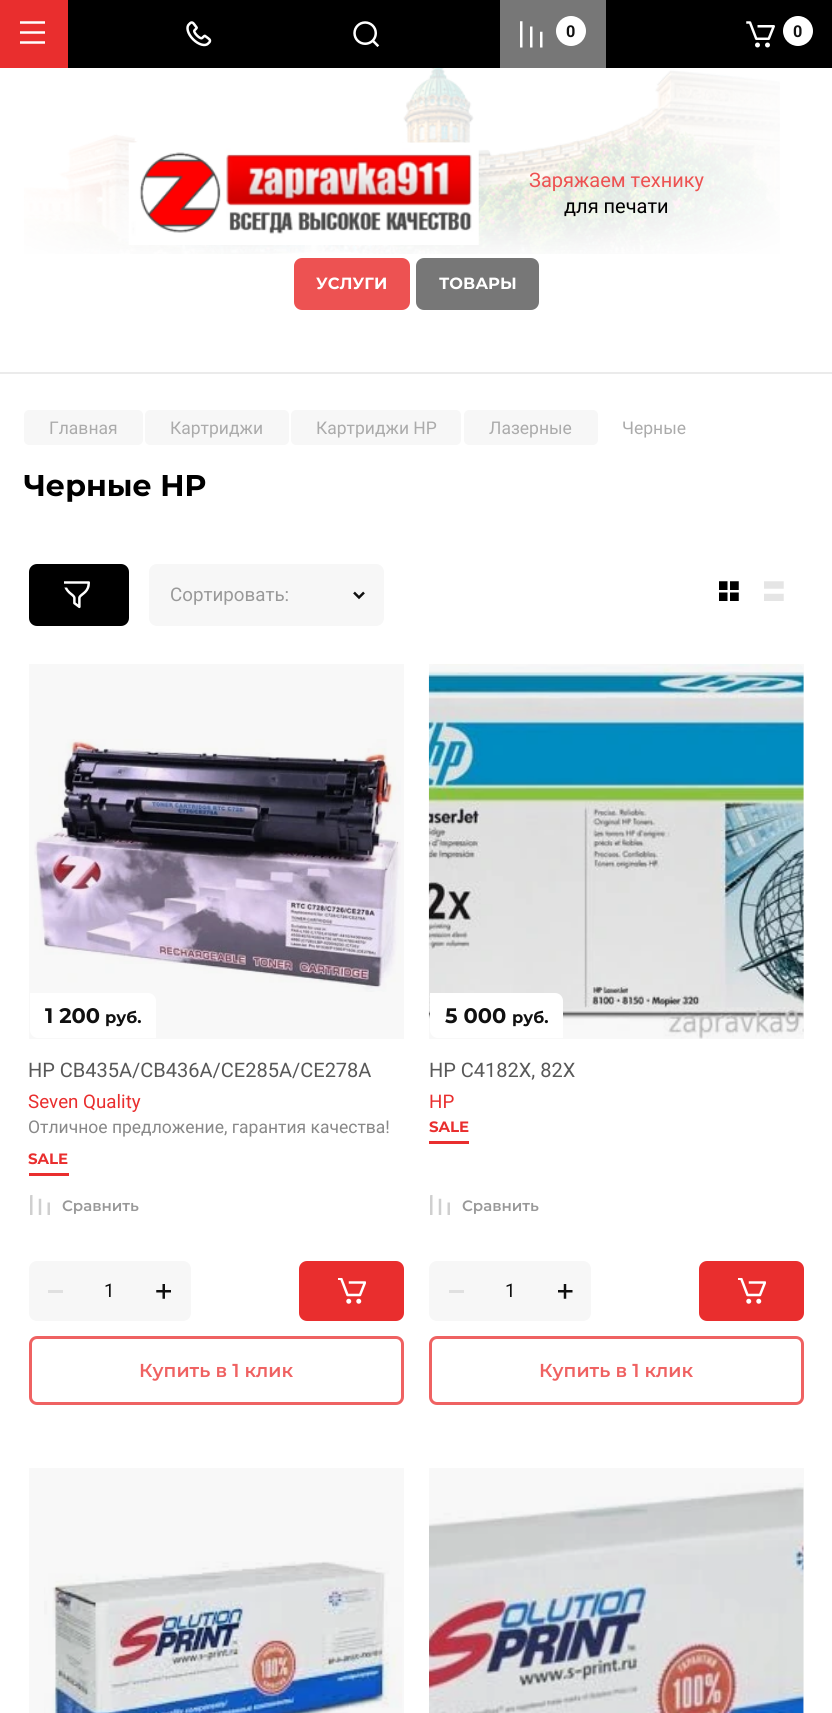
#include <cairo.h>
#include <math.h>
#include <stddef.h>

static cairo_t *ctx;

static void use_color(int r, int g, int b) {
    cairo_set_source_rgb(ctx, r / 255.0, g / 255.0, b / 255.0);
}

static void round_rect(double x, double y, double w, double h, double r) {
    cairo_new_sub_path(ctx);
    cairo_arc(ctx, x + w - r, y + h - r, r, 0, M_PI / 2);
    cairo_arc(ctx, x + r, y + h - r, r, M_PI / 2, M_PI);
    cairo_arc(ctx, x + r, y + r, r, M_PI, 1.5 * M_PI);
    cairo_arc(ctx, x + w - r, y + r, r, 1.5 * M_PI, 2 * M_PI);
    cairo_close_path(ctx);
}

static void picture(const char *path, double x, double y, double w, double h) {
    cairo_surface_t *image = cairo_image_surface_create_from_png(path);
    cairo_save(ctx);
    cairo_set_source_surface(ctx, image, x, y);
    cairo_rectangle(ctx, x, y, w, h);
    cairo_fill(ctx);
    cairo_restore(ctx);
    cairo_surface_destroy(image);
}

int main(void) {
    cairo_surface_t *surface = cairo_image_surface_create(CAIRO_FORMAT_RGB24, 832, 1713);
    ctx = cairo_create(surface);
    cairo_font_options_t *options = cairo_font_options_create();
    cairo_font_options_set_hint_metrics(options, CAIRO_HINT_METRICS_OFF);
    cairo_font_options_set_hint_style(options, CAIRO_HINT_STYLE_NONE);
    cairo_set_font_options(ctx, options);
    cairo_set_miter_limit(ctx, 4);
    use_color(255, 255, 255);
    cairo_paint(ctx);
    picture("img1.png", 24, 68, 756, 186);
    use_color(0, 0, 0);
    cairo_rectangle(ctx, 68, 0, 764, 68);
    cairo_fill(ctx);
    use_color(233, 46, 46);
    cairo_rectangle(ctx, 0, 0, 68, 68);
    cairo_fill(ctx);
    picture("img2.png", 20, 21, 25, 23);
    picture("img3.png", 186, 21, 26, 26);
    picture("img4.png", 353, 21, 27, 26);
    use_color(119, 119, 119);
    cairo_rectangle(ctx, 500, 0, 106, 68);
    cairo_fill(ctx);
    picture("img5.png", 520, 21, 23, 27);
    use_color(255, 255, 255);
    cairo_arc(ctx, 571, 31, 15, 0, 2 * M_PI);
    cairo_fill(ctx);
    cairo_select_font_face(ctx, "Roboto", CAIRO_FONT_SLANT_NORMAL, CAIRO_FONT_WEIGHT_BOLD);
    cairo_set_font_size(ctx, 16.25);
    use_color(16, 16, 16);
    cairo_move_to(ctx, 566, 37);
    cairo_show_text(ctx, "0");
    picture("img6.png", 746, 21, 29, 27);
    use_color(255, 255, 255);
    cairo_arc(ctx, 798, 31, 15, 0, 2 * M_PI);
    cairo_fill(ctx);
    use_color(16, 16, 16);
    cairo_move_to(ctx, 793, 37);
    cairo_show_text(ctx, "0");
    use_color(235, 235, 235);
    cairo_new_path(ctx);
    cairo_move_to(ctx, 0, 372);
    cairo_line_to(ctx, 0, 374);
    cairo_line_to(ctx, 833, 374);
    cairo_line_to(ctx, 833, 126);
    cairo_line_to(ctx, 832, 126);
    cairo_line_to(ctx, 832, 372);
    cairo_close_path(ctx);
    cairo_fill(ctx);
    picture("img7.png", 128, 142, 351, 103);
    cairo_select_font_face(ctx, "Roboto", CAIRO_FONT_SLANT_NORMAL, CAIRO_FONT_WEIGHT_NORMAL);
    cairo_set_font_size(ctx, 20);
    use_color(237, 82, 82);
    cairo_move_to(ctx, 529, 187);
    cairo_show_text(ctx, "Заряжаем технику");
    use_color(0, 0, 0);
    cairo_move_to(ctx, 564, 213);
    cairo_show_text(ctx, "для печати");
    use_color(237, 82, 82);
    round_rect(294, 258, 116, 52, 8);
    cairo_fill(ctx);
    cairo_select_font_face(ctx, "Montserrat", CAIRO_FONT_SLANT_NORMAL, CAIRO_FONT_WEIGHT_BOLD);
    cairo_set_font_size(ctx, 16.25);
    use_color(255, 255, 255);
    cairo_move_to(ctx, 316, 289);
    cairo_show_text(ctx, "УСЛУГИ");
    use_color(119, 119, 119);
    round_rect(416, 258, 123, 52, 8);
    cairo_fill(ctx);
    use_color(255, 255, 255);
    cairo_move_to(ctx, 439, 289);
    cairo_show_text(ctx, "ТОВАРЫ");
    use_color(247, 247, 247);
    round_rect(24, 410, 119, 35, 5);
    cairo_fill(ctx);
    cairo_select_font_face(ctx, "Roboto", CAIRO_FONT_SLANT_NORMAL, CAIRO_FONT_WEIGHT_NORMAL);
    cairo_set_font_size(ctx, 17.5);
    use_color(171, 171, 171);
    cairo_move_to(ctx, 49, 434);
    cairo_show_text(ctx, "Главная");
    use_color(247, 247, 247);
    round_rect(145, 410, 144, 35, 5);
    cairo_fill(ctx);
    use_color(171, 171, 171);
    cairo_move_to(ctx, 170, 434);
    cairo_show_text(ctx, "Картриджи");
    use_color(247, 247, 247);
    round_rect(291, 410, 170, 35, 5);
    cairo_fill(ctx);
    use_color(171, 171, 171);
    cairo_move_to(ctx, 316, 434);
    cairo_show_text(ctx, "Картриджи HP");
    use_color(247, 247, 247);
    round_rect(464, 410, 134, 35, 5);
    cairo_fill(ctx);
    use_color(171, 171, 171);
    cairo_move_to(ctx, 489, 434);
    cairo_show_text(ctx, "Лазерные");
    cairo_move_to(ctx, 622, 434);
    cairo_show_text(ctx, "Черные");
    cairo_select_font_face(ctx, "Montserrat", CAIRO_FONT_SLANT_NORMAL, CAIRO_FONT_WEIGHT_BOLD);
    cairo_set_font_size(ctx, 30);
    use_color(0, 0, 0);
    cairo_move_to(ctx, 24, 496);
    cairo_show_text(ctx, "Черные HP");
    round_rect(30.5, 565.5, 97, 59, 6.5);
    cairo_fill_preserve(ctx);
    cairo_set_line_width(ctx, 3);
    cairo_stroke(ctx);
    picture("img8.png", 64, 581, 26, 28);
    use_color(247, 247, 247);
    round_rect(149, 564, 235, 62, 8);
    cairo_fill(ctx);
    cairo_select_font_face(ctx, "Roboto", CAIRO_FONT_SLANT_NORMAL, CAIRO_FONT_WEIGHT_NORMAL);
    cairo_set_font_size(ctx, 18.75);
    use_color(153, 153, 153);
    cairo_move_to(ctx, 170, 601);
    cairo_show_text(ctx, "Сортировать:");
    cairo_new_path(ctx);
    cairo_move_to(ctx, 364, 592.5);
    cairo_line_to(ctx, 359, 597.5);
    cairo_line_to(ctx, 354, 592.5);
    use_color(16, 16, 16);
    cairo_set_line_width(ctx, 2.5);
    cairo_stroke(ctx);
    picture("img9.png", 719, 581, 20, 20);
    picture("img10.png", 764, 581, 20, 20);
    picture("img11.png", 34, 739, 367, 253);
    cairo_set_source_rgba(ctx, 0, 0, 0, 0.03);
    cairo_rectangle(ctx, 29, 664, 375, 375);
    cairo_fill(ctx);
    use_color(255, 255, 255);
    cairo_new_path(ctx);
    cairo_move_to(ctx, 30, 993);
    cairo_line_to(ctx, 148, 993);
    cairo_curve_to(ctx, 152.5, 993, 156, 996.5, 156, 1001);
    cairo_line_to(ctx, 156, 1038);
    cairo_line_to(ctx, 38, 1038);
    cairo_curve_to(ctx, 33.5, 1038, 30, 1034.5, 30, 1030);
    cairo_close_path(ctx);
    cairo_fill(ctx);
    cairo_select_font_face(ctx, "Montserrat", CAIRO_FONT_SLANT_NORMAL, CAIRO_FONT_WEIGHT_BOLD);
    cairo_set_font_size(ctx, 21);
    use_color(16, 16, 16);
    cairo_move_to(ctx, 45, 1023);
    cairo_show_text(ctx, "1 200");
    cairo_set_font_size(ctx, 16.25);
    cairo_move_to(ctx, 105, 1023);
    cairo_show_text(ctx, "руб.");
    cairo_select_font_face(ctx, "Roboto", CAIRO_FONT_SLANT_NORMAL, CAIRO_FONT_WEIGHT_NORMAL);
    cairo_set_font_size(ctx, 20);
    use_color(88, 88, 88);
    cairo_move_to(ctx, 28, 1077);
    cairo_show_text(ctx, "HP CB435A/CB436A/CE285A/CE278A");
    cairo_set_font_size(ctx, 18.75);
    use_color(233, 46, 46);
    cairo_move_to(ctx, 28, 1108);
    cairo_show_text(ctx, "Seven Quality");
    cairo_set_font_size(ctx, 17.5);
    use_color(136, 136, 136);
    cairo_move_to(ctx, 28, 1133);
    cairo_show_text(ctx, "Отличное предложение, гарантия качества!");
    use_color(233, 46, 46);
    cairo_rectangle(ctx, 29, 1173, 40, 3);
    cairo_fill(ctx);
    cairo_select_font_face(ctx, "Montserrat", CAIRO_FONT_SLANT_NORMAL, CAIRO_FONT_WEIGHT_BOLD);
    cairo_set_font_size(ctx, 15);
    cairo_move_to(ctx, 28, 1164);
    cairo_show_text(ctx, "SALE");
    picture("img12.png", 30, 1195, 20, 20);
    cairo_select_font_face(ctx, "Montserrat SemiBold", CAIRO_FONT_SLANT_NORMAL, CAIRO_FONT_WEIGHT_NORMAL);
    use_color(153, 153, 153);
    cairo_move_to(ctx, 62, 1211);
    cairo_show_text(ctx, "Сравнить");
    use_color(247, 247, 247);
    round_rect(29, 1261, 162, 60, 8);
    cairo_fill(ctx);
    use_color(224, 224, 224);
    cairo_rectangle(ctx, 48, 1290, 15, 3);
    cairo_fill(ctx);
    cairo_select_font_face(ctx, "Roboto", CAIRO_FONT_SLANT_NORMAL, CAIRO_FONT_WEIGHT_NORMAL);
    cairo_set_font_size(ctx, 18.75);
    use_color(16, 16, 16);
    cairo_move_to(ctx, 104, 1297);
    cairo_show_text(ctx, "1");
    picture("img13.png", 156, 1284, 15, 15);
    use_color(233, 46, 46);
    round_rect(299, 1261, 105, 60, 8);
    cairo_fill(ctx);
    picture("img14.png", 338, 1278, 28, 26);
    round_rect(30.5, 1337.5, 372, 66, 6.5);
    use_color(239, 98, 98);
    cairo_set_line_width(ctx, 3);
    cairo_stroke(ctx);
    cairo_select_font_face(ctx, "Montserrat SemiBold", CAIRO_FONT_SLANT_NORMAL, CAIRO_FONT_WEIGHT_NORMAL);
    cairo_move_to(ctx, 139, 1377);
    cairo_show_text(ctx, "Купить в 1 клик");
    picture("img15.png", 428, 664, 376, 375);
    cairo_set_source_rgba(ctx, 0, 0, 0, 0.03);
    cairo_rectangle(ctx, 429, 664, 375, 375);
    cairo_fill(ctx);
    use_color(255, 255, 255);
    cairo_new_path(ctx);
    cairo_move_to(ctx, 430, 993);
    cairo_line_to(ctx, 555, 993);
    cairo_curve_to(ctx, 559.5, 993, 563, 996.5, 563, 1001);
    cairo_line_to(ctx, 563, 1038);
    cairo_line_to(ctx, 438, 1038);
    cairo_curve_to(ctx, 433.5, 1038, 430, 1034.5, 430, 1030);
    cairo_close_path(ctx);
    cairo_fill(ctx);
    cairo_select_font_face(ctx, "Montserrat", CAIRO_FONT_SLANT_NORMAL, CAIRO_FONT_WEIGHT_BOLD);
    cairo_set_font_size(ctx, 21);
    use_color(16, 16, 16);
    cairo_move_to(ctx, 445, 1023);
    cairo_show_text(ctx, "5 000");
    cairo_set_font_size(ctx, 16.25);
    cairo_move_to(ctx, 512, 1023);
    cairo_show_text(ctx, "руб.");
    cairo_select_font_face(ctx, "Roboto", CAIRO_FONT_SLANT_NORMAL, CAIRO_FONT_WEIGHT_NORMAL);
    cairo_set_font_size(ctx, 20);
    use_color(88, 88, 88);
    cairo_move_to(ctx, 429, 1077);
    cairo_show_text(ctx, "HP C4182X, 82X");
    cairo_set_font_size(ctx, 18.75);
    use_color(233, 46, 46);
    cairo_move_to(ctx, 429, 1108);
    cairo_show_text(ctx, "HP");
    cairo_rectangle(ctx, 429, 1141, 40, 3);
    cairo_fill(ctx);
    cairo_select_font_face(ctx, "Montserrat", CAIRO_FONT_SLANT_NORMAL, CAIRO_FONT_WEIGHT_BOLD);
    cairo_set_font_size(ctx, 15);
    cairo_move_to(ctx, 429, 1132);
    cairo_show_text(ctx, "SALE");
    picture("img12.png", 430, 1195, 20, 20);
    cairo_select_font_face(ctx, "Montserrat SemiBold", CAIRO_FONT_SLANT_NORMAL, CAIRO_FONT_WEIGHT_NORMAL);
    use_color(153, 153, 153);
    cairo_move_to(ctx, 462, 1211);
    cairo_show_text(ctx, "Сравнить");
    use_color(247, 247, 247);
    round_rect(429, 1261, 162, 60, 8);
    cairo_fill(ctx);
    use_color(224, 224, 224);
    cairo_rectangle(ctx, 449, 1290, 15, 3);
    cairo_fill(ctx);
    cairo_select_font_face(ctx, "Roboto", CAIRO_FONT_SLANT_NORMAL, CAIRO_FONT_WEIGHT_NORMAL);
    cairo_set_font_size(ctx, 18.75);
    use_color(16, 16, 16);
    cairo_move_to(ctx, 505, 1297);
    cairo_show_text(ctx, "1");
    picture("img16.png", 558, 1284, 15, 15);
    use_color(233, 46, 46);
    round_rect(699, 1261, 105, 60, 8);
    cairo_fill(ctx);
    picture("img14.png", 738, 1278, 28, 26);
    round_rect(430.5, 1337.5, 372, 66, 6.5);
    use_color(239, 98, 98);
    cairo_stroke(ctx);
    cairo_select_font_face(ctx, "Montserrat SemiBold", CAIRO_FONT_SLANT_NORMAL, CAIRO_FONT_WEIGHT_NORMAL);
    cairo_move_to(ctx, 539, 1377);
    cairo_show_text(ctx, "Купить в 1 клик");
    picture("img17.png", 44, 1561, 358, 152);
    cairo_set_source_rgba(ctx, 0, 0, 0, 0.03);
    cairo_rectangle(ctx, 29, 1468, 375, 245);
    cairo_fill(ctx);
    picture("img18.png", 429, 1483, 375, 230);
    cairo_rectangle(ctx, 429, 1468, 375, 245);
    cairo_fill(ctx);
    cairo_surface_write_to_png(surface, "result.png");
    cairo_font_options_destroy(options);
    cairo_destroy(ctx);
    cairo_surface_destroy(surface);
    return 0;
}
